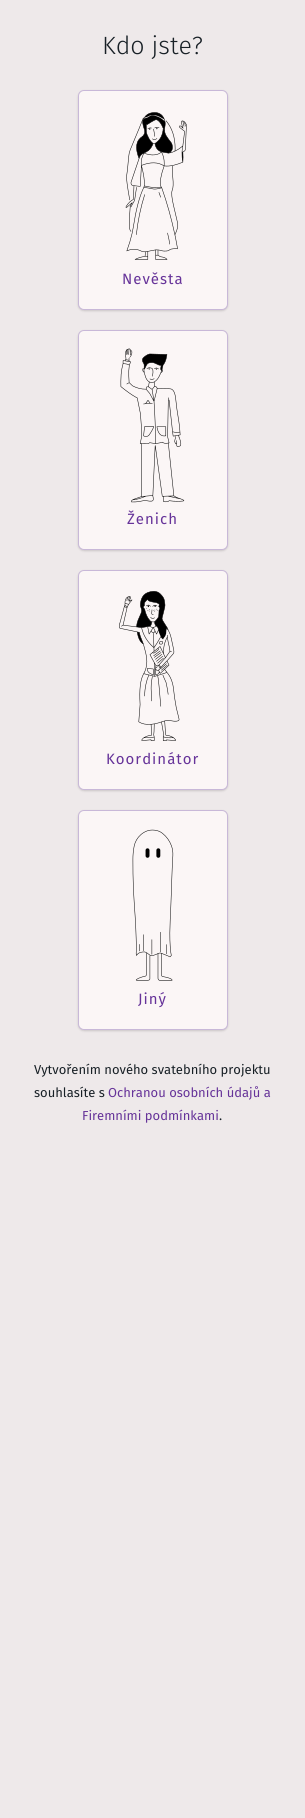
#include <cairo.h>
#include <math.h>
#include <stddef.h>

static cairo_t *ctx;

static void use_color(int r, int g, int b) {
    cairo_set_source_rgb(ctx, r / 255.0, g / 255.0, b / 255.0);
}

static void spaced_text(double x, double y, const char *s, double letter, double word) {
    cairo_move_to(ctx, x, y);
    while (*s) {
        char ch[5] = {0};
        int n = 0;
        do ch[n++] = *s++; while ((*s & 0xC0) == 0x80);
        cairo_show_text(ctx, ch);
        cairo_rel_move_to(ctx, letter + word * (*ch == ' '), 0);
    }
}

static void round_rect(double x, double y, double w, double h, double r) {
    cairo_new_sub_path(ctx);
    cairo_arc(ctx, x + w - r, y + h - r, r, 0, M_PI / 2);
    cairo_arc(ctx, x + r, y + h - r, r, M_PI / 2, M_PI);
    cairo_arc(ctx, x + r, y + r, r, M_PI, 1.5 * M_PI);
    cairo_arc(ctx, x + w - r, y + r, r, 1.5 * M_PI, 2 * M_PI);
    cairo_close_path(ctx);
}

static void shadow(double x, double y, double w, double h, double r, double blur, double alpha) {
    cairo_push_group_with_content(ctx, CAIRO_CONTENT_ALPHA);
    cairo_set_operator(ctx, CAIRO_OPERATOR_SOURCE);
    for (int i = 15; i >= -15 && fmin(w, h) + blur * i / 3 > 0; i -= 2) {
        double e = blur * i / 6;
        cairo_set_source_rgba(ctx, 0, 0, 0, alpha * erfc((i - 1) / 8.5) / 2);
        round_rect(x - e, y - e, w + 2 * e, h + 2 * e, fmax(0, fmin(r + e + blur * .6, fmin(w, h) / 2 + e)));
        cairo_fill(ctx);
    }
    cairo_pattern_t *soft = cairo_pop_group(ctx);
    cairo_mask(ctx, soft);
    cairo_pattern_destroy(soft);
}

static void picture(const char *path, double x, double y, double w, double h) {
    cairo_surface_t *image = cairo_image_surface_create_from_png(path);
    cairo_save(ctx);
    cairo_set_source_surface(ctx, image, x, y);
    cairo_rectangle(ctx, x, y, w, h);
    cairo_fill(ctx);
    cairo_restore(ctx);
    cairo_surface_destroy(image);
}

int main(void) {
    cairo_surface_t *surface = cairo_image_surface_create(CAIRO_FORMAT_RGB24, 305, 1818);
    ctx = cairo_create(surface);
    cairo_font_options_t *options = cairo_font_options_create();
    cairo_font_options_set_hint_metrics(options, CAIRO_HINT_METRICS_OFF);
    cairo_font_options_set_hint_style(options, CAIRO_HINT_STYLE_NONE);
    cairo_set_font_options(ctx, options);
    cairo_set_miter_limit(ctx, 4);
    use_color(238, 233, 234);
    cairo_paint(ctx);
    cairo_select_font_face(ctx, "Fira Sans Light", CAIRO_FONT_SLANT_NORMAL, CAIRO_FONT_WEIGHT_NORMAL);
    cairo_set_font_size(ctx, 25);
    use_color(24, 32, 38);
    cairo_move_to(ctx, 102, 54);
    cairo_show_text(ctx, "Kdo jste?");
    use_color(0, 0, 0);
    shadow(78, 91, 150, 220, 6, 1, 0.15);
    use_color(251, 246, 246);
    round_rect(78.5, 90.5, 149, 219, 5.5);
    cairo_fill_preserve(ctx);
    use_color(200, 184, 216);
    cairo_set_line_width(ctx, 1);
    cairo_stroke(ctx);
    picture("img1.png", 125, 112, 62, 148);
    cairo_select_font_face(ctx, "Fira Sans", CAIRO_FONT_SLANT_NORMAL, CAIRO_FONT_WEIGHT_NORMAL);
    cairo_set_font_size(ctx, 15);
    use_color(102, 51, 153);
    spaced_text(122, 284, "Nevěsta", 1, 0);
    use_color(0, 0, 0);
    shadow(78, 331, 150, 220, 6, 1, 0.15);
    use_color(251, 246, 246);
    round_rect(78.5, 330.5, 149, 219, 5.5);
    cairo_fill_preserve(ctx);
    use_color(200, 184, 216);
    cairo_stroke(ctx);
    picture("img2.png", 120, 348, 65, 155);
    use_color(102, 51, 153);
    spaced_text(127, 524, "Ženich", 1, 0);
    use_color(0, 0, 0);
    shadow(78, 571, 150, 220, 6, 1, 0.15);
    use_color(251, 246, 246);
    round_rect(78.5, 570.5, 149, 219, 5.5);
    cairo_fill_preserve(ctx);
    use_color(200, 184, 216);
    cairo_stroke(ctx);
    picture("img3.png", 119, 591, 61, 150);
    use_color(102, 51, 153);
    spaced_text(106, 764, "Koordinátor", 1, 0);
    use_color(0, 0, 0);
    shadow(78, 811, 150, 220, 6, 1, 0.15);
    use_color(251, 246, 246);
    round_rect(78.5, 810.5, 149, 219, 5.5);
    cairo_fill_preserve(ctx);
    use_color(200, 184, 216);
    cairo_stroke(ctx);
    picture("img4.png", 132, 829, 42, 152);
    use_color(102, 51, 153);
    spaced_text(138, 1004, "Jiný", 1, 0);
    cairo_set_font_size(ctx, 13);
    use_color(24, 32, 38);
    cairo_move_to(ctx, 34, 1074);
    cairo_show_text(ctx, "Vytvořením nového svatebního projektu");
    cairo_move_to(ctx, 34, 1097);
    cairo_show_text(ctx, "souhlasíte s");
    use_color(102, 51, 153);
    cairo_move_to(ctx, 108, 1097);
    cairo_show_text(ctx, "Ochranou osobních údajů a");
    cairo_move_to(ctx, 82, 1120);
    cairo_show_text(ctx, "Firemními podmínkami");
    use_color(24, 32, 38);
    cairo_move_to(ctx, 219, 1120);
    cairo_show_text(ctx, ".");
    cairo_surface_write_to_png(surface, "result.png");
    cairo_font_options_destroy(options);
    cairo_destroy(ctx);
    cairo_surface_destroy(surface);
    return 0;
}
